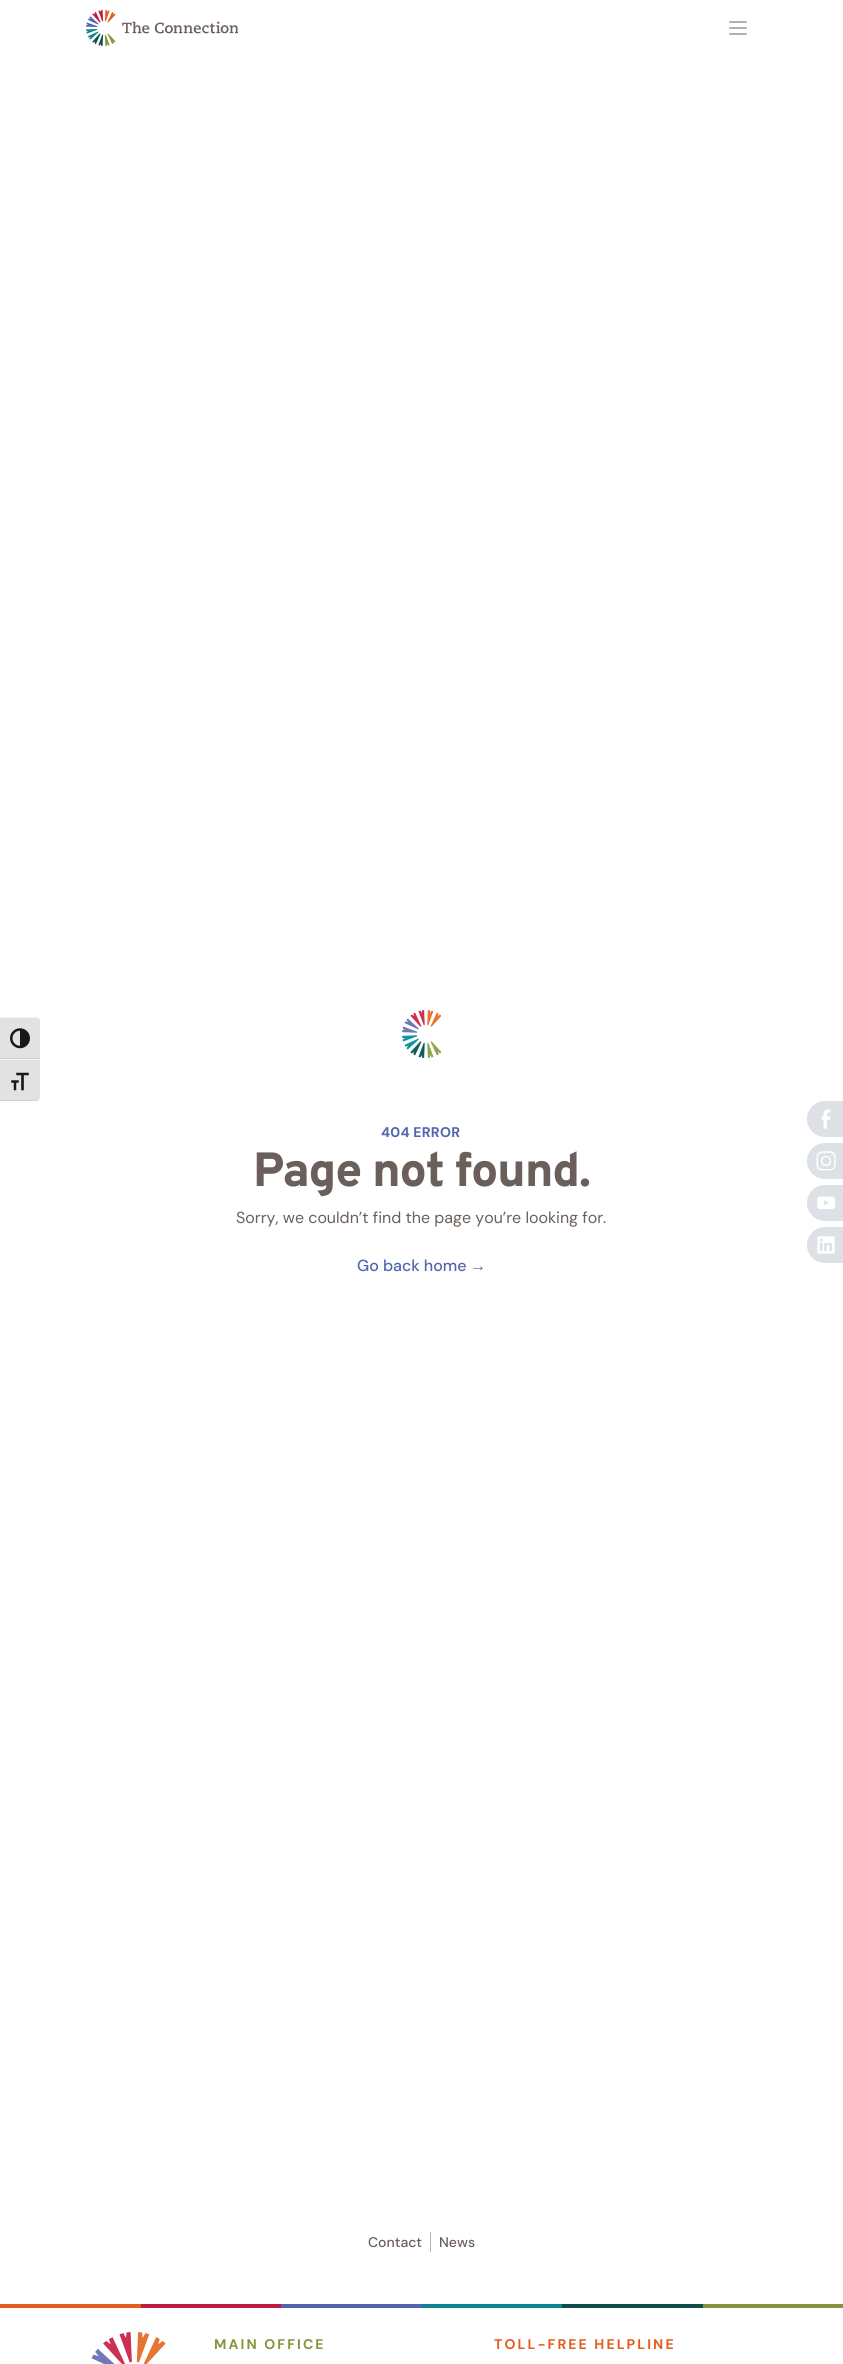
#include <cairo.h>
#include <math.h>
#include <stddef.h>

static cairo_t *ctx;

static void use_color(int r, int g, int b) {
    cairo_set_source_rgb(ctx, r / 255.0, g / 255.0, b / 255.0);
}

static void spaced_text(double x, double y, const char *s, double letter, double word) {
    cairo_move_to(ctx, x, y);
    while (*s) {
        char ch[5] = {0};
        int n = 0;
        do ch[n++] = *s++; while ((*s & 0xC0) == 0x80);
        cairo_show_text(ctx, ch);
        cairo_rel_move_to(ctx, letter + word * (*ch == ' '), 0);
    }
}

static void picture(const char *path, double x, double y, double w, double h) {
    cairo_surface_t *image = cairo_image_surface_create_from_png(path);
    cairo_save(ctx);
    cairo_set_source_surface(ctx, image, x, y);
    cairo_rectangle(ctx, x, y, w, h);
    cairo_fill(ctx);
    cairo_restore(ctx);
    cairo_surface_destroy(image);
}

int main(void) {
    cairo_surface_t *surface = cairo_image_surface_create(CAIRO_FORMAT_RGB24, 843, 2364);
    ctx = cairo_create(surface);
    cairo_font_options_t *options = cairo_font_options_create();
    cairo_font_options_set_hint_metrics(options, CAIRO_HINT_METRICS_OFF);
    cairo_font_options_set_hint_style(options, CAIRO_HINT_STYLE_NONE);
    cairo_set_font_options(ctx, options);
    cairo_set_miter_limit(ctx, 4);
    use_color(255, 255, 255);
    cairo_paint(ctx);
    use_color(226, 226, 226);
    cairo_new_path(ctx);
    cairo_move_to(ctx, 0, 1017);
    cairo_line_to(ctx, 36, 1017);
    cairo_curve_to(ctx, 38, 1017, 40, 1019, 40, 1021);
    cairo_line_to(ctx, 40, 1059);
    cairo_line_to(ctx, 0, 1059);
    cairo_close_path(ctx);
    cairo_fill(ctx);
    use_color(245, 245, 245);
    cairo_new_path(ctx);
    cairo_move_to(ctx, 0, 1017);
    cairo_line_to(ctx, 0, 1018);
    cairo_line_to(ctx, 36, 1018);
    cairo_curve_to(ctx, 38, 1018, 40, 1019, 40, 1021);
    cairo_curve_to(ctx, 40, 1019, 38, 1017, 36, 1017);
    cairo_close_path(ctx);
    cairo_fill(ctx);
    use_color(210, 210, 210);
    cairo_rectangle(ctx, 0, 1058, 40, 1);
    cairo_fill(ctx);
    picture("img1.png", 10, 1028, 20, 21);
    use_color(226, 226, 226);
    cairo_new_path(ctx);
    cairo_move_to(ctx, 0, 1059);
    cairo_line_to(ctx, 40, 1059);
    cairo_line_to(ctx, 40, 1097);
    cairo_curve_to(ctx, 40, 1099, 38, 1101, 36, 1101);
    cairo_line_to(ctx, 0, 1101);
    cairo_close_path(ctx);
    cairo_fill(ctx);
    use_color(245, 245, 245);
    cairo_rectangle(ctx, 0, 1059, 40, 1);
    cairo_fill(ctx);
    use_color(210, 210, 210);
    cairo_new_path(ctx);
    cairo_move_to(ctx, 0, 1100);
    cairo_line_to(ctx, 0, 1101);
    cairo_line_to(ctx, 36, 1101);
    cairo_curve_to(ctx, 38, 1101, 40, 1099, 40, 1097);
    cairo_curve_to(ctx, 40, 1099, 38, 1100, 36, 1100);
    cairo_close_path(ctx);
    cairo_fill(ctx);
    picture("img2.png", 11, 1072, 18, 19);
    picture("img3.png", 86, 10, 152, 36);
    cairo_new_path(ctx);
    cairo_move_to(ctx, 730, 22);
    cairo_line_to(ctx, 746, 22);
    cairo_move_to(ctx, 730, 28);
    cairo_line_to(ctx, 746, 28);
    cairo_move_to(ctx, 730, 34);
    cairo_line_to(ctx, 746, 34);
    use_color(179, 177, 176);
    cairo_set_line_cap(ctx, CAIRO_LINE_CAP_ROUND);
    cairo_set_line_join(ctx, CAIRO_LINE_JOIN_ROUND);
    cairo_stroke(ctx);
    picture("img4.png", 402, 1010, 39, 48);
    cairo_select_font_face(ctx, "DM Sans", CAIRO_FONT_SLANT_NORMAL, CAIRO_FONT_WEIGHT_BOLD);
    cairo_set_font_size(ctx, 14);
    use_color(80, 101, 173);
    spaced_text(381, 1137, "404 ERROR", 0.25, 0);
    cairo_select_font_face(ctx, "Overpass ExtraBold", CAIRO_FONT_SLANT_NORMAL, CAIRO_FONT_WEIGHT_NORMAL);
    cairo_set_font_size(ctx, 48);
    use_color(106, 95, 90);
    spaced_text(253, 1186, "Page not found.", -1.25, 0);
    cairo_select_font_face(ctx, "DM Sans", CAIRO_FONT_SLANT_NORMAL, CAIRO_FONT_WEIGHT_NORMAL);
    cairo_set_font_size(ctx, 16);
    cairo_move_to(ctx, 236, 1223);
    cairo_show_text(ctx, "Sorry, we couldn’t find the page you’re looking for.");
    cairo_select_font_face(ctx, "DM Sans Medium", CAIRO_FONT_SLANT_NORMAL, CAIRO_FONT_WEIGHT_NORMAL);
    use_color(80, 101, 173);
    cairo_move_to(ctx, 357, 1271);
    cairo_show_text(ctx, "Go back home");
    cairo_select_font_face(ctx, "Liberation Sans", CAIRO_FONT_SLANT_NORMAL, CAIRO_FONT_WEIGHT_NORMAL);
    cairo_move_to(ctx, 470, 1271);
    cairo_show_text(ctx, "→");
    cairo_select_font_face(ctx, "DM Sans Medium", CAIRO_FONT_SLANT_NORMAL, CAIRO_FONT_WEIGHT_NORMAL);
    cairo_set_font_size(ctx, 14);
    use_color(106, 95, 90);
    cairo_move_to(ctx, 368, 2247);
    cairo_show_text(ctx, "Contact");
    use_color(179, 177, 176);
    cairo_rectangle(ctx, 430, 2232, 1, 20);
    cairo_fill(ctx);
    use_color(106, 95, 90);
    cairo_move_to(ctx, 439, 2247);
    cairo_show_text(ctx, "News");
    picture("img5.png", 807, 1101, 36, 36);
    picture("img6.png", 807, 1143, 36, 36);
    picture("img7.png", 807, 1185, 36, 36);
    picture("img8.png", 807, 1227, 36, 36);
    use_color(225, 94, 32);
    cairo_rectangle(ctx, 0, 2304, 141, 4);
    cairo_fill(ctx);
    use_color(190, 26, 66);
    cairo_rectangle(ctx, 141, 2304, 140, 4);
    cairo_fill(ctx);
    use_color(80, 101, 173);
    cairo_rectangle(ctx, 281, 2304, 141, 4);
    cairo_fill(ctx);
    use_color(13, 132, 143);
    cairo_rectangle(ctx, 422, 2304, 140, 4);
    cairo_fill(ctx);
    use_color(16, 77, 73);
    cairo_rectangle(ctx, 562, 2304, 141, 4);
    cairo_fill(ctx);
    use_color(135, 148, 59);
    cairo_rectangle(ctx, 703, 2304, 140, 4);
    cairo_fill(ctx);
    picture("img9.png", 91, 2332, 75, 32);
    cairo_select_font_face(ctx, "DM Sans", CAIRO_FONT_SLANT_NORMAL, CAIRO_FONT_WEIGHT_BOLD);
    spaced_text(214, 2349, "MAIN OFFICE", 2.1, 0);
    use_color(225, 94, 32);
    spaced_text(494, 2349, "TOLL-FREE HELPLINE", 2.1, 0);
    cairo_surface_write_to_png(surface, "result.png");
    cairo_font_options_destroy(options);
    cairo_destroy(ctx);
    cairo_surface_destroy(surface);
    return 0;
}
